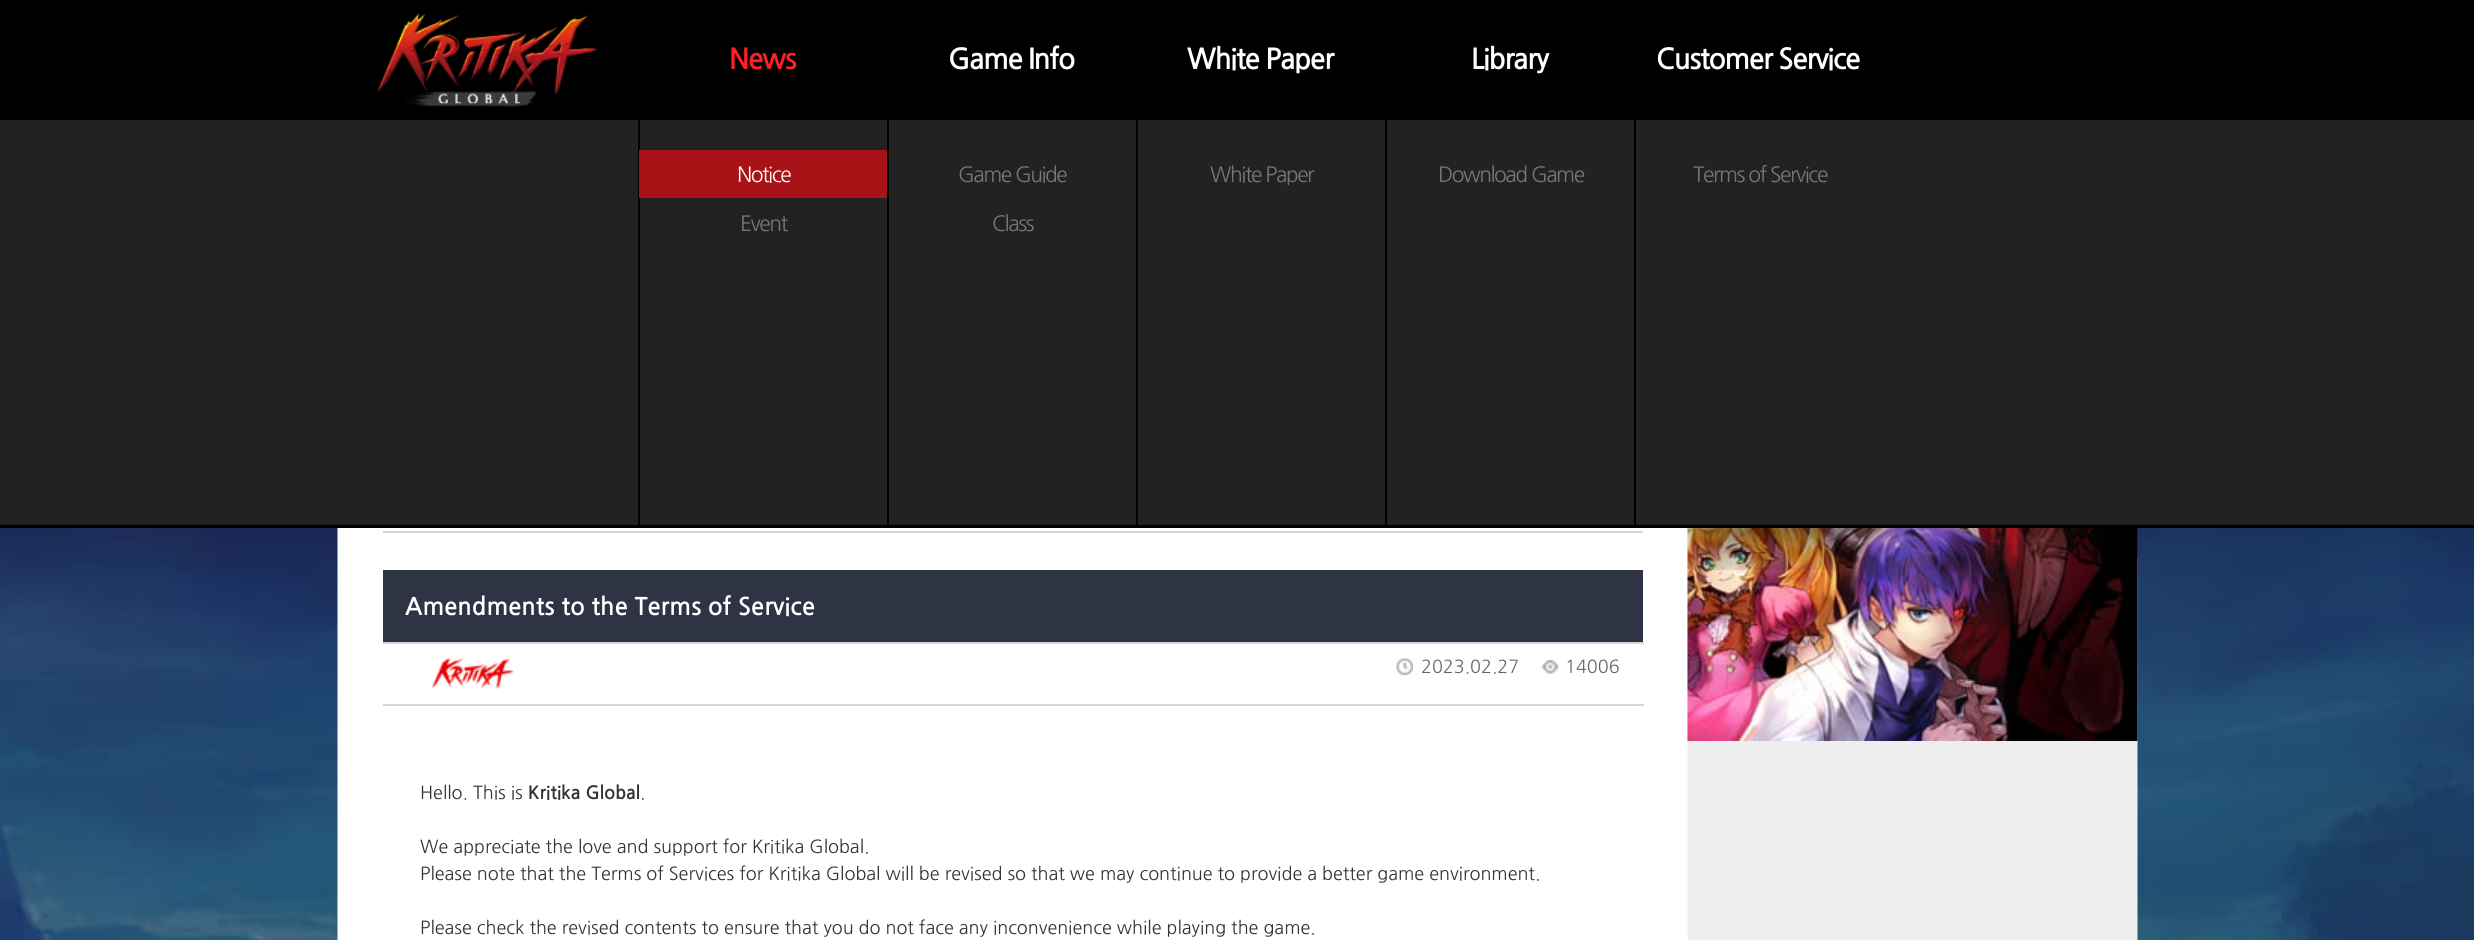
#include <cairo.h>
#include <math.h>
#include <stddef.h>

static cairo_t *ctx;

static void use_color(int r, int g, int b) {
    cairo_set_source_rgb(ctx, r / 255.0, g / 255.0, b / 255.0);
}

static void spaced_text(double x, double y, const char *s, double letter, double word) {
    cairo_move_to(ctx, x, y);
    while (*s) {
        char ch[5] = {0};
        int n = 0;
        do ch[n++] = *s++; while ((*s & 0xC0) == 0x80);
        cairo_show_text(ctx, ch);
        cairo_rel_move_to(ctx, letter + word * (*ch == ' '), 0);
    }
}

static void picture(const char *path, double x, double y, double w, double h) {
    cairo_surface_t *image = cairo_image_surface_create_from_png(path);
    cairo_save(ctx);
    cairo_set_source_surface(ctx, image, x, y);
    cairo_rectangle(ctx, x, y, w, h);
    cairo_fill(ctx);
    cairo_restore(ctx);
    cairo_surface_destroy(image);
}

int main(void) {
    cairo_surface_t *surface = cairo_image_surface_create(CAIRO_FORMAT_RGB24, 2474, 940);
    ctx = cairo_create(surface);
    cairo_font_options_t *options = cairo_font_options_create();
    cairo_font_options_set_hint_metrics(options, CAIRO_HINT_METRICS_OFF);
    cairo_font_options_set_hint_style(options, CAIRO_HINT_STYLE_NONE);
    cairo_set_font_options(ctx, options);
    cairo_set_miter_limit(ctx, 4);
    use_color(255, 255, 255);
    cairo_paint(ctx);
    picture("img1.png", 0, 528, 2474, 412);
    use_color(0, 0, 0);
    cairo_rectangle(ctx, 0, 0, 2474, 120);
    cairo_fill(ctx);
    picture("img2.png", 376, 13, 223, 94);
    cairo_select_font_face(ctx, "NanumGothic", CAIRO_FONT_SLANT_NORMAL, CAIRO_FONT_WEIGHT_BOLD);
    cairo_set_font_size(ctx, 28.5);
    use_color(254, 31, 39);
    spaced_text(729, 69, "News", -1.5, 0);
    use_color(255, 255, 255);
    spaced_text(948, 69, "Game Info", -1.5, 0);
    spaced_text(1187, 69, "White Paper", -1.5, 0);
    spaced_text(1471, 69, "Library", -1.5, 0);
    spaced_text(1656, 69, "Customer Service", -1.5, 0);
    use_color(34, 34, 34);
    cairo_rectangle(ctx, 0, 120, 2474, 405);
    cairo_fill(ctx);
    use_color(0, 0, 0);
    cairo_rectangle(ctx, 0, 525, 2474, 3);
    cairo_fill(ctx);
    cairo_rectangle(ctx, 638, 120, 2, 405);
    cairo_fill(ctx);
    use_color(168, 19, 24);
    cairo_rectangle(ctx, 639, 150, 248, 48);
    cairo_fill(ctx);
    cairo_select_font_face(ctx, "NanumGothic", CAIRO_FONT_SLANT_NORMAL, CAIRO_FONT_WEIGHT_NORMAL);
    cairo_set_font_size(ctx, 21);
    use_color(255, 255, 255);
    spaced_text(737, 182, "Notice", -1.5, 0);
    use_color(119, 119, 119);
    spaced_text(740, 231, "Event", -1.5, 0);
    use_color(0, 0, 0);
    cairo_rectangle(ctx, 887, 120, 2, 405);
    cairo_fill(ctx);
    use_color(119, 119, 119);
    spaced_text(958, 182, "Game Guide", -1.5, 0);
    spaced_text(992, 231, "Class", -1.5, 0);
    use_color(0, 0, 0);
    cairo_rectangle(ctx, 1136, 120, 2, 405);
    cairo_fill(ctx);
    use_color(119, 119, 119);
    spaced_text(1210, 182, "White Paper", -1.5, 0);
    use_color(0, 0, 0);
    cairo_rectangle(ctx, 1385, 120, 2, 405);
    cairo_fill(ctx);
    use_color(119, 119, 119);
    spaced_text(1438, 182, "Download Game", -1.5, 0);
    use_color(0, 0, 0);
    cairo_rectangle(ctx, 1634, 120, 2, 405);
    cairo_fill(ctx);
    use_color(119, 119, 119);
    spaced_text(1693, 182, "Terms of Service", -1.5, 0);
    picture("img3.png", 337, 528, 1801, 412);
    use_color(214, 214, 214);
    cairo_rectangle(ctx, 383, 531, 1260, 2);
    cairo_fill(ctx);
    use_color(46, 52, 67);
    cairo_rectangle(ctx, 383, 570, 1260, 72);
    cairo_fill(ctx);
    use_color(213, 214, 217);
    cairo_rectangle(ctx, 383, 642, 1261, 2);
    cairo_fill(ctx);
    cairo_select_font_face(ctx, "NanumGothic", CAIRO_FONT_SLANT_NORMAL, CAIRO_FONT_WEIGHT_BOLD);
    cairo_set_font_size(ctx, 24);
    use_color(255, 255, 255);
    cairo_move_to(ctx, 405, 615);
    cairo_show_text(ctx, "Amendments to the Terms of Service");
    use_color(213, 214, 217);
    cairo_rectangle(ctx, 383, 704, 1261, 2);
    cairo_fill(ctx);
    picture("img4.png", 431, 658, 83, 31);
    picture("img5.png", 1396, 658, 17, 17);
    cairo_select_font_face(ctx, "NanumGothic", CAIRO_FONT_SLANT_NORMAL, CAIRO_FONT_WEIGHT_NORMAL);
    cairo_set_font_size(ctx, 18);
    use_color(102, 102, 102);
    cairo_move_to(ctx, 1421, 673);
    cairo_show_text(ctx, "2023.02.27");
    picture("img6.png", 1542, 660, 17, 14);
    cairo_move_to(ctx, 1565, 673);
    cairo_show_text(ctx, "14006");
    use_color(51, 51, 51);
    cairo_move_to(ctx, 420, 799);
    cairo_show_text(ctx, "Hello. This is");
    cairo_select_font_face(ctx, "NanumGothic", CAIRO_FONT_SLANT_NORMAL, CAIRO_FONT_WEIGHT_BOLD);
    cairo_move_to(ctx, 528, 799);
    cairo_show_text(ctx, "Kritika Global");
    cairo_select_font_face(ctx, "NanumGothic", CAIRO_FONT_SLANT_NORMAL, CAIRO_FONT_WEIGHT_NORMAL);
    cairo_move_to(ctx, 640, 799);
    cairo_show_text(ctx, ".");
    cairo_move_to(ctx, 420, 853);
    cairo_show_text(ctx, "We appreciate the love and support for Kritika Global.");
    cairo_move_to(ctx, 420, 880);
    cairo_show_text(ctx, "Please note that the Terms of Services for Kritika Global will be revised so that we may continue to provide a better game environment.");
    cairo_move_to(ctx, 420, 934);
    cairo_show_text(ctx, "Please check the revised contents to ensure that you do not face any inconvenience while playing the game.");
    use_color(255, 0, 0);
    cairo_rectangle(ctx, 2137, 528, 1, 30);
    cairo_fill(ctx);
    picture("img7.png", 1687, 528, 451, 213);
    cairo_surface_write_to_png(surface, "result.png");
    cairo_font_options_destroy(options);
    cairo_destroy(ctx);
    cairo_surface_destroy(surface);
    return 0;
}
